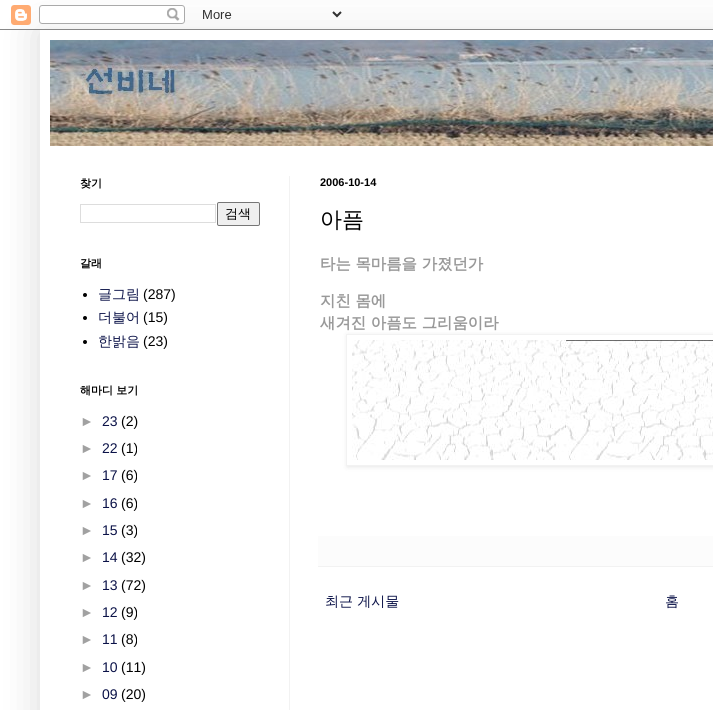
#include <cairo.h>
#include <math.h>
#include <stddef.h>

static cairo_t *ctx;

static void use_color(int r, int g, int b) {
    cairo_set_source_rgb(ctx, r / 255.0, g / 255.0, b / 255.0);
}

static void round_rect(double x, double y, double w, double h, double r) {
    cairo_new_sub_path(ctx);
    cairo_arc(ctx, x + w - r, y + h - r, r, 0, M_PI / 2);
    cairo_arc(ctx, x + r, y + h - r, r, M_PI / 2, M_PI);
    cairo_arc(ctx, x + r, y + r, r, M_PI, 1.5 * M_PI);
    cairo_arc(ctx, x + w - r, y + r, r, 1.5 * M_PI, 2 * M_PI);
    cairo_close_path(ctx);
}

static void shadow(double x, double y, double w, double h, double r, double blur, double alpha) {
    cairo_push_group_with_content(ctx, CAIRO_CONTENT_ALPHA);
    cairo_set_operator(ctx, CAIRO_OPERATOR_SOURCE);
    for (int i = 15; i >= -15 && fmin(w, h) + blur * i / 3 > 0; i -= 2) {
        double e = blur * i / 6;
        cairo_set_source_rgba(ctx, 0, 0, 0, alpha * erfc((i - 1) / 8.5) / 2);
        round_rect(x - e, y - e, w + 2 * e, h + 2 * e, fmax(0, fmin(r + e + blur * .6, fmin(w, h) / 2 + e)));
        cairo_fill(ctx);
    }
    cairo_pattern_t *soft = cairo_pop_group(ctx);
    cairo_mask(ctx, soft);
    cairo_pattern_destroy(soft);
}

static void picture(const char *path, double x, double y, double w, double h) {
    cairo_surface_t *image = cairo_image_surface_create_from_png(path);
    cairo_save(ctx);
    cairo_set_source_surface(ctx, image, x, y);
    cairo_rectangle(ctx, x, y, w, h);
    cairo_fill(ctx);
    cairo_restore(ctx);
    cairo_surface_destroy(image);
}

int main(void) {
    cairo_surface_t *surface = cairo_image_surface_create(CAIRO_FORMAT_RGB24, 713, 710);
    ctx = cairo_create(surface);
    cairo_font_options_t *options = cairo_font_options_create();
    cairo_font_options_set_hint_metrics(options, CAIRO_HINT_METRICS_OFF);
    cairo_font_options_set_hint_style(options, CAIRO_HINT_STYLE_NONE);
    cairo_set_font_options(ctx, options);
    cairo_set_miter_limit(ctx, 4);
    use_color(255, 255, 255);
    cairo_paint(ctx);
    cairo_save(ctx);
    cairo_set_fill_rule(ctx, CAIRO_FILL_RULE_EVEN_ODD);
    cairo_new_path(ctx);
    cairo_move_to(ctx, 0, 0);
    cairo_line_to(ctx, 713, 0);
    cairo_line_to(ctx, 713, 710);
    cairo_line_to(ctx, 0, 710);
    cairo_close_path(ctx);
    cairo_move_to(ctx, 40, 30);
    cairo_line_to(ctx, 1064, 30);
    cairo_line_to(ctx, 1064, 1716);
    cairo_line_to(ctx, 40, 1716);
    cairo_close_path(ctx);
    cairo_clip(ctx);
    use_color(0, 0, 0);
    shadow(40, 30, 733, 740, 0, 20, 0.15);
    cairo_restore(ctx);
    picture("img1.png", 0, 5, 713, 25);
    picture("img2.png", 50, 40, 663, 106);
    use_color(242, 242, 242);
    cairo_rectangle(ctx, 289, 176, 1, 534);
    cairo_fill(ctx);
    cairo_select_font_face(ctx, "WenQuanYi Zen Hei", CAIRO_FONT_SLANT_NORMAL, CAIRO_FONT_WEIGHT_BOLD);
    cairo_set_font_size(ctx, 11);
    use_color(0, 0, 0);
    cairo_move_to(ctx, 80, 187);
    cairo_show_text(ctx, "찾기");
    cairo_rectangle(ctx, 80.5, 204.5, 135, 18);
    use_color(221, 221, 221);
    cairo_set_line_width(ctx, 1);
    cairo_stroke(ctx);
    use_color(239, 239, 239);
    round_rect(217.5, 202.5, 42, 23, 1.5);
    cairo_fill_preserve(ctx);
    use_color(118, 118, 118);
    cairo_stroke(ctx);
    cairo_select_font_face(ctx, "WenQuanYi Zen Hei Medium", CAIRO_FONT_SLANT_NORMAL, CAIRO_FONT_WEIGHT_NORMAL);
    cairo_set_font_size(ctx, 13);
    use_color(0, 0, 0);
    cairo_move_to(ctx, 225, 218);
    cairo_show_text(ctx, "검색");
    cairo_select_font_face(ctx, "WenQuanYi Zen Hei", CAIRO_FONT_SLANT_NORMAL, CAIRO_FONT_WEIGHT_BOLD);
    cairo_set_font_size(ctx, 11);
    cairo_move_to(ctx, 80, 267);
    cairo_show_text(ctx, "갈래");
    cairo_new_path(ctx);
    cairo_arc(ctx, 85, 295, 2, 0, 2 * M_PI);
    cairo_fill(ctx);
    cairo_select_font_face(ctx, "WenQuanYi Zen Hei Medium", CAIRO_FONT_SLANT_NORMAL, CAIRO_FONT_WEIGHT_NORMAL);
    cairo_set_font_size(ctx, 14);
    use_color(11, 18, 72);
    cairo_move_to(ctx, 98, 299);
    cairo_show_text(ctx, "글그림");
    cairo_select_font_face(ctx, "Liberation Sans", CAIRO_FONT_SLANT_NORMAL, CAIRO_FONT_WEIGHT_NORMAL);
    use_color(0, 0, 0);
    cairo_move_to(ctx, 143, 299);
    cairo_show_text(ctx, "(287)");
    cairo_new_path(ctx);
    cairo_arc(ctx, 85, 318, 2, 0, 2 * M_PI);
    cairo_fill(ctx);
    cairo_select_font_face(ctx, "WenQuanYi Zen Hei Medium", CAIRO_FONT_SLANT_NORMAL, CAIRO_FONT_WEIGHT_NORMAL);
    use_color(11, 18, 72);
    cairo_move_to(ctx, 98, 322);
    cairo_show_text(ctx, "더불어");
    cairo_select_font_face(ctx, "Liberation Sans", CAIRO_FONT_SLANT_NORMAL, CAIRO_FONT_WEIGHT_NORMAL);
    use_color(0, 0, 0);
    cairo_move_to(ctx, 143, 322);
    cairo_show_text(ctx, "(15)");
    cairo_new_path(ctx);
    cairo_arc(ctx, 85, 342, 2, 0, 2 * M_PI);
    cairo_fill(ctx);
    cairo_select_font_face(ctx, "WenQuanYi Zen Hei Medium", CAIRO_FONT_SLANT_NORMAL, CAIRO_FONT_WEIGHT_NORMAL);
    use_color(11, 18, 72);
    cairo_move_to(ctx, 98, 346);
    cairo_show_text(ctx, "한밝음");
    cairo_select_font_face(ctx, "Liberation Sans", CAIRO_FONT_SLANT_NORMAL, CAIRO_FONT_WEIGHT_NORMAL);
    use_color(0, 0, 0);
    cairo_move_to(ctx, 143, 346);
    cairo_show_text(ctx, "(23)");
    cairo_select_font_face(ctx, "WenQuanYi Zen Hei", CAIRO_FONT_SLANT_NORMAL, CAIRO_FONT_WEIGHT_BOLD);
    cairo_set_font_size(ctx, 11);
    cairo_move_to(ctx, 80, 394);
    cairo_show_text(ctx, "해마디 보기");
    cairo_select_font_face(ctx, "Liberation Sans", CAIRO_FONT_SLANT_NORMAL, CAIRO_FONT_WEIGHT_NORMAL);
    cairo_set_font_size(ctx, 14);
    use_color(161, 161, 161);
    cairo_move_to(ctx, 80, 426);
    cairo_show_text(ctx, "►");
    use_color(11, 18, 72);
    cairo_move_to(ctx, 102, 426);
    cairo_show_text(ctx, "23");
    use_color(0, 0, 0);
    cairo_move_to(ctx, 121, 426);
    cairo_show_text(ctx, "(2)");
    use_color(161, 161, 161);
    cairo_move_to(ctx, 80, 453);
    cairo_show_text(ctx, "►");
    use_color(11, 18, 72);
    cairo_move_to(ctx, 102, 453);
    cairo_show_text(ctx, "22");
    use_color(0, 0, 0);
    cairo_move_to(ctx, 121, 453);
    cairo_show_text(ctx, "(1)");
    use_color(161, 161, 161);
    cairo_move_to(ctx, 80, 480);
    cairo_show_text(ctx, "►");
    use_color(11, 18, 72);
    cairo_move_to(ctx, 102, 480);
    cairo_show_text(ctx, "17");
    use_color(0, 0, 0);
    cairo_move_to(ctx, 121, 480);
    cairo_show_text(ctx, "(6)");
    use_color(161, 161, 161);
    cairo_move_to(ctx, 80, 508);
    cairo_show_text(ctx, "►");
    use_color(11, 18, 72);
    cairo_move_to(ctx, 102, 508);
    cairo_show_text(ctx, "16");
    use_color(0, 0, 0);
    cairo_move_to(ctx, 121, 508);
    cairo_show_text(ctx, "(6)");
    use_color(161, 161, 161);
    cairo_move_to(ctx, 80, 535);
    cairo_show_text(ctx, "►");
    use_color(11, 18, 72);
    cairo_move_to(ctx, 102, 535);
    cairo_show_text(ctx, "15");
    use_color(0, 0, 0);
    cairo_move_to(ctx, 121, 535);
    cairo_show_text(ctx, "(3)");
    use_color(161, 161, 161);
    cairo_move_to(ctx, 80, 562);
    cairo_show_text(ctx, "►");
    use_color(11, 18, 72);
    cairo_move_to(ctx, 102, 562);
    cairo_show_text(ctx, "14");
    use_color(0, 0, 0);
    cairo_move_to(ctx, 121, 562);
    cairo_show_text(ctx, "(32)");
    use_color(161, 161, 161);
    cairo_move_to(ctx, 80, 590);
    cairo_show_text(ctx, "►");
    use_color(11, 18, 72);
    cairo_move_to(ctx, 102, 590);
    cairo_show_text(ctx, "13");
    use_color(0, 0, 0);
    cairo_move_to(ctx, 121, 590);
    cairo_show_text(ctx, "(72)");
    use_color(161, 161, 161);
    cairo_move_to(ctx, 80, 617);
    cairo_show_text(ctx, "►");
    use_color(11, 18, 72);
    cairo_move_to(ctx, 102, 617);
    cairo_show_text(ctx, "12");
    use_color(0, 0, 0);
    cairo_move_to(ctx, 121, 617);
    cairo_show_text(ctx, "(9)");
    use_color(161, 161, 161);
    cairo_move_to(ctx, 80, 644);
    cairo_show_text(ctx, "►");
    use_color(11, 18, 72);
    cairo_move_to(ctx, 102, 644);
    cairo_show_text(ctx, "11");
    use_color(0, 0, 0);
    cairo_move_to(ctx, 121, 644);
    cairo_show_text(ctx, "(8)");
    use_color(161, 161, 161);
    cairo_move_to(ctx, 80, 672);
    cairo_show_text(ctx, "►");
    use_color(11, 18, 72);
    cairo_move_to(ctx, 102, 672);
    cairo_show_text(ctx, "10");
    use_color(0, 0, 0);
    cairo_move_to(ctx, 121, 672);
    cairo_show_text(ctx, "(11)");
    use_color(161, 161, 161);
    cairo_move_to(ctx, 80, 699);
    cairo_show_text(ctx, "►");
    use_color(11, 18, 72);
    cairo_move_to(ctx, 102, 699);
    cairo_show_text(ctx, "09");
    use_color(0, 0, 0);
    cairo_move_to(ctx, 121, 699);
    cairo_show_text(ctx, "(20)");
    cairo_select_font_face(ctx, "Liberation Sans", CAIRO_FONT_SLANT_NORMAL, CAIRO_FONT_WEIGHT_BOLD);
    cairo_set_font_size(ctx, 11);
    cairo_move_to(ctx, 320, 186);
    cairo_show_text(ctx, "2006-10-14");
    cairo_select_font_face(ctx, "WenQuanYi Zen Hei Medium", CAIRO_FONT_SLANT_NORMAL, CAIRO_FONT_WEIGHT_NORMAL);
    cairo_set_font_size(ctx, 22);
    cairo_move_to(ctx, 320, 227);
    cairo_show_text(ctx, "아픔");
    cairo_select_font_face(ctx, "WenQuanYi Zen Hei", CAIRO_FONT_SLANT_NORMAL, CAIRO_FONT_WEIGHT_BOLD);
    cairo_set_font_size(ctx, 15.4);
    use_color(153, 153, 153);
    cairo_move_to(ctx, 320, 269);
    cairo_show_text(ctx, "타는 목마름을 가졌던가");
    cairo_move_to(ctx, 320, 306);
    cairo_show_text(ctx, "지친 몸에");
    cairo_move_to(ctx, 320, 328);
    cairo_show_text(ctx, "새겨진 아픔도 그리움이라");
    cairo_save(ctx);
    cairo_set_fill_rule(ctx, CAIRO_FILL_RULE_EVEN_ODD);
    cairo_new_path(ctx);
    cairo_move_to(ctx, 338, 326);
    cairo_line_to(ctx, 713, 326);
    cairo_line_to(ctx, 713, 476);
    cairo_line_to(ctx, 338, 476);
    cairo_close_path(ctx);
    cairo_move_to(ctx, 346, 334);
    cairo_line_to(ctx, 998, 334);
    cairo_line_to(ctx, 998, 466);
    cairo_line_to(ctx, 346, 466);
    cairo_close_path(ctx);
    cairo_clip(ctx);
    use_color(0, 0, 0);
    shadow(347, 335, 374, 132, 0, 2.5, 0.1);
    cairo_restore(ctx);
    cairo_rectangle(ctx, 346.5, 334.5, 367, 131);
    use_color(242, 242, 242);
    cairo_stroke(ctx);
    picture("img3.png", 352, 340, 361, 120);
    use_color(252, 252, 252);
    cairo_rectangle(ctx, 318, 536, 395, 30);
    cairo_fill(ctx);
    use_color(242, 242, 242);
    cairo_rectangle(ctx, 318, 566, 395, 1);
    cairo_fill(ctx);
    cairo_select_font_face(ctx, "WenQuanYi Zen Hei Medium", CAIRO_FONT_SLANT_NORMAL, CAIRO_FONT_WEIGHT_NORMAL);
    cairo_set_font_size(ctx, 14);
    use_color(11, 18, 72);
    cairo_move_to(ctx, 325, 606);
    cairo_show_text(ctx, "최근 게시물");
    cairo_move_to(ctx, 665, 606);
    cairo_show_text(ctx, "홈");
    cairo_surface_write_to_png(surface, "result.png");
    cairo_font_options_destroy(options);
    cairo_destroy(ctx);
    cairo_surface_destroy(surface);
    return 0;
}
